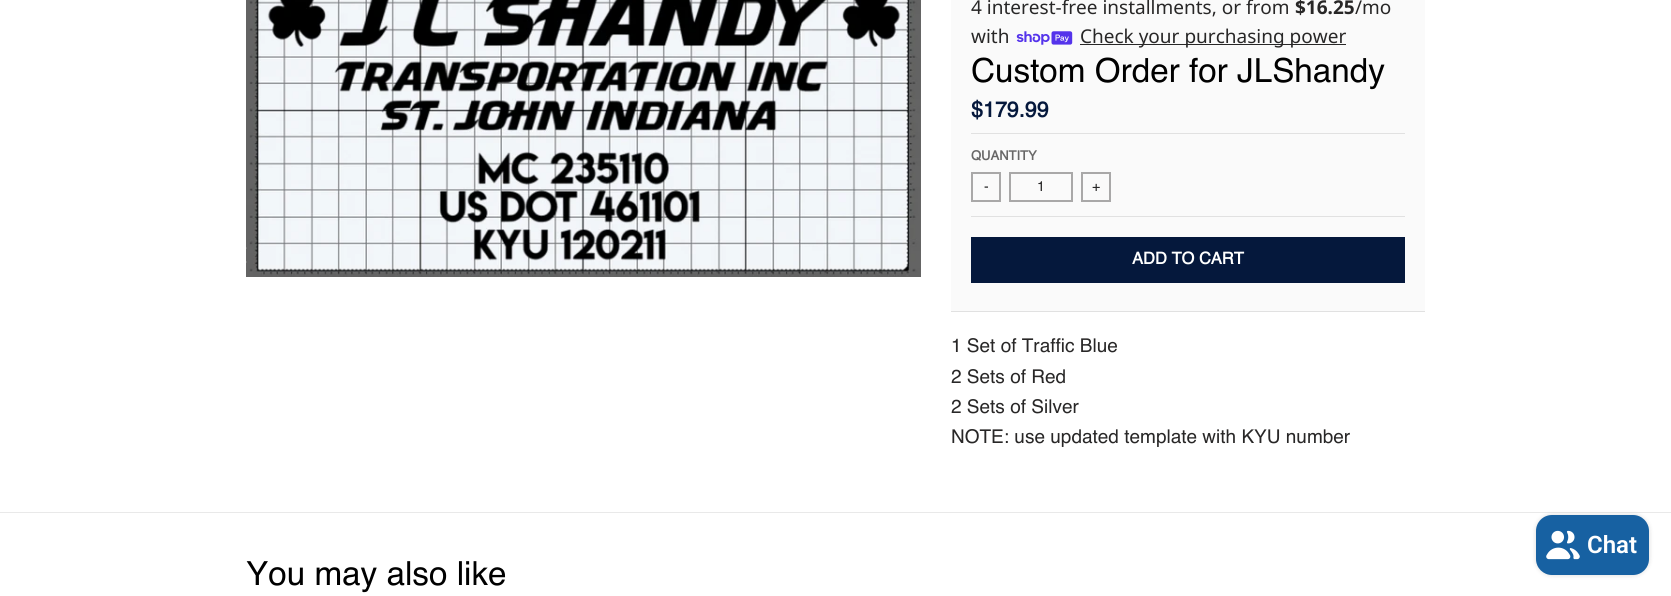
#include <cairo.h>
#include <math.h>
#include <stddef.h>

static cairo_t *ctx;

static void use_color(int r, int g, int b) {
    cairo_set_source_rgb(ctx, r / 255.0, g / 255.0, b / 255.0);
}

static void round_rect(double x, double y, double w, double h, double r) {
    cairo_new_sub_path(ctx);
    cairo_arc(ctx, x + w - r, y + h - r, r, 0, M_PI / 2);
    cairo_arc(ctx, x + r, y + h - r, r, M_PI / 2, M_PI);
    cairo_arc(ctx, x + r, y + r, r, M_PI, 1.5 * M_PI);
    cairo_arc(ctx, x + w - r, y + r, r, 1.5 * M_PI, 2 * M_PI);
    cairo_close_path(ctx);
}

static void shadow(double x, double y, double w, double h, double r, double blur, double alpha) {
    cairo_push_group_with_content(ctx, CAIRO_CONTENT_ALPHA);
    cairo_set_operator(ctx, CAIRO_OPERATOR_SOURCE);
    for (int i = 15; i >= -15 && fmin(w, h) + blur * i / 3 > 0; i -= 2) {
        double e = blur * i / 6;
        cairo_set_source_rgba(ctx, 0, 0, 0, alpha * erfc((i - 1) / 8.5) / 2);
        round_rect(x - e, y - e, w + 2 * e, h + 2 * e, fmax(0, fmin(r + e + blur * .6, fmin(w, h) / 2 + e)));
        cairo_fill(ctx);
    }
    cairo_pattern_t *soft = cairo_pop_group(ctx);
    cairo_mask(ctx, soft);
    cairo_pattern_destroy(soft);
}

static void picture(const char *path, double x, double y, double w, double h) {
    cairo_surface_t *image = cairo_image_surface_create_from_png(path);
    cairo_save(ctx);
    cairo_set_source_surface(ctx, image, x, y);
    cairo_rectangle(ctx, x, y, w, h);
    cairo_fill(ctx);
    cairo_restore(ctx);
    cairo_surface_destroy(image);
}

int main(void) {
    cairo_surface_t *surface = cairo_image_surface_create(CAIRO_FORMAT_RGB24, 1671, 596);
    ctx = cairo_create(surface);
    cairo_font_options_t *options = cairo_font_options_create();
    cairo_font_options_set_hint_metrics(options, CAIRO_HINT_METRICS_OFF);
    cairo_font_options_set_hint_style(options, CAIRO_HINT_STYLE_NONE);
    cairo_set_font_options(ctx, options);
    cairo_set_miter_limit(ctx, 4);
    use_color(255, 255, 255);
    cairo_paint(ctx);
    use_color(233, 233, 233);
    cairo_rectangle(ctx, 0, 512, 1671, 1);
    cairo_fill(ctx);
    picture("img1.png", 246, 0, 675, 277);
    use_color(255, 255, 255);
    cairo_new_path(ctx);
    cairo_move_to(ctx, 236, 255);
    cairo_line_to(ctx, 244.5, 264);
    cairo_line_to(ctx, 246.5, 262);
    cairo_line_to(ctx, 239.5, 255);
    cairo_line_to(ctx, 246.5, 248);
    cairo_line_to(ctx, 244.5, 246.5);
    cairo_close_path(ctx);
    cairo_fill(ctx);
    use_color(250, 250, 250);
    cairo_rectangle(ctx, 951, 0, 474, 311);
    cairo_fill(ctx);
    use_color(225, 225, 225);
    cairo_rectangle(ctx, 951, 311, 474, 1);
    cairo_fill(ctx);
    cairo_select_font_face(ctx, "Noto Sans", CAIRO_FONT_SLANT_NORMAL, CAIRO_FONT_WEIGHT_NORMAL);
    cairo_set_font_size(ctx, 19);
    use_color(40, 39, 39);
    cairo_move_to(ctx, 971, 14);
    cairo_show_text(ctx, "4 interest-free installments, or from");
    cairo_select_font_face(ctx, "Noto Sans", CAIRO_FONT_SLANT_NORMAL, CAIRO_FONT_WEIGHT_BOLD);
    cairo_move_to(ctx, 1295, 14);
    cairo_show_text(ctx, "$16.25");
    cairo_select_font_face(ctx, "Noto Sans", CAIRO_FONT_SLANT_NORMAL, CAIRO_FONT_WEIGHT_NORMAL);
    cairo_move_to(ctx, 1355, 14);
    cairo_show_text(ctx, "/mo");
    cairo_move_to(ctx, 971, 43);
    cairo_show_text(ctx, "with");
    picture("img2.png", 1016, 31, 57, 14);
    cairo_rectangle(ctx, 1080, 44, 266, 1);
    cairo_fill(ctx);
    cairo_move_to(ctx, 1080, 43);
    cairo_show_text(ctx, "Check your purchasing power");
    cairo_select_font_face(ctx, "Helvetica", CAIRO_FONT_SLANT_NORMAL, CAIRO_FONT_WEIGHT_NORMAL);
    cairo_set_font_size(ctx, 33.25);
    use_color(0, 0, 0);
    cairo_move_to(ctx, 971, 82);
    cairo_show_text(ctx, "Custom Order for JLShandy");
    use_color(225, 225, 225);
    cairo_rectangle(ctx, 971, 133, 434, 1);
    cairo_fill(ctx);
    cairo_select_font_face(ctx, "Helvetica", CAIRO_FONT_SLANT_NORMAL, CAIRO_FONT_WEIGHT_BOLD);
    cairo_set_font_size(ctx, 21.5);
    use_color(5, 24, 60);
    cairo_move_to(ctx, 971, 117);
    cairo_show_text(ctx, "$179.99");
    use_color(225, 225, 225);
    cairo_rectangle(ctx, 971, 216, 434, 1);
    cairo_fill(ctx);
    cairo_set_font_size(ctx, 13);
    use_color(104, 103, 103);
    cairo_move_to(ctx, 971, 160);
    cairo_show_text(ctx, "QUANTITY");
    cairo_rectangle(ctx, 972, 173, 28, 28);
    use_color(169, 168, 168);
    cairo_stroke(ctx);
    cairo_select_font_face(ctx, "Helvetica", CAIRO_FONT_SLANT_NORMAL, CAIRO_FONT_WEIGHT_NORMAL);
    cairo_set_font_size(ctx, 14);
    use_color(40, 39, 39);
    cairo_move_to(ctx, 984, 191);
    cairo_show_text(ctx, "-");
    cairo_rectangle(ctx, 1010, 173, 62, 28);
    use_color(169, 168, 168);
    cairo_stroke(ctx);
    use_color(40, 39, 39);
    cairo_move_to(ctx, 1037, 191);
    cairo_show_text(ctx, "1");
    cairo_rectangle(ctx, 1082, 173, 28, 28);
    use_color(169, 168, 168);
    cairo_stroke(ctx);
    use_color(40, 39, 39);
    cairo_move_to(ctx, 1092, 191);
    cairo_show_text(ctx, "+");
    use_color(5, 24, 60);
    cairo_rectangle(ctx, 971, 237, 434, 46);
    cairo_fill(ctx);
    cairo_select_font_face(ctx, "Helvetica", CAIRO_FONT_SLANT_NORMAL, CAIRO_FONT_WEIGHT_BOLD);
    cairo_set_font_size(ctx, 16.5);
    use_color(255, 255, 255);
    cairo_move_to(ctx, 1132, 264);
    cairo_show_text(ctx, "ADD TO CART");
    cairo_select_font_face(ctx, "Helvetica", CAIRO_FONT_SLANT_NORMAL, CAIRO_FONT_WEIGHT_NORMAL);
    cairo_set_font_size(ctx, 19);
    use_color(40, 39, 39);
    cairo_move_to(ctx, 951, 352);
    cairo_show_text(ctx, "1 Set of Traffic Blue");
    cairo_move_to(ctx, 951, 383);
    cairo_show_text(ctx, "2 Sets of Red");
    cairo_move_to(ctx, 951, 413);
    cairo_show_text(ctx, "2 Sets of Silver");
    cairo_move_to(ctx, 951, 443);
    cairo_show_text(ctx, "NOTE: use updated template with KYU number");
    cairo_set_font_size(ctx, 33.25);
    use_color(0, 0, 0);
    cairo_move_to(ctx, 246, 585);
    cairo_show_text(ctx, "You may also like");
    use_color(0, 0, 0);
    shadow(1536, 515, 113, 60, 16, 2.5, 0.15);
    use_color(23, 97, 162);
    round_rect(1536, 515, 113, 60, 16);
    cairo_fill(ctx);
    picture("img3.png", 1546, 530, 34, 30);
    cairo_select_font_face(ctx, "Roboto SemiBold", CAIRO_FONT_SLANT_NORMAL, CAIRO_FONT_WEIGHT_NORMAL);
    cairo_set_font_size(ctx, 24);
    use_color(255, 255, 255);
    cairo_move_to(ctx, 1587, 553);
    cairo_show_text(ctx, "Chat");
    cairo_surface_write_to_png(surface, "result.png");
    cairo_font_options_destroy(options);
    cairo_destroy(ctx);
    cairo_surface_destroy(surface);
    return 0;
}
